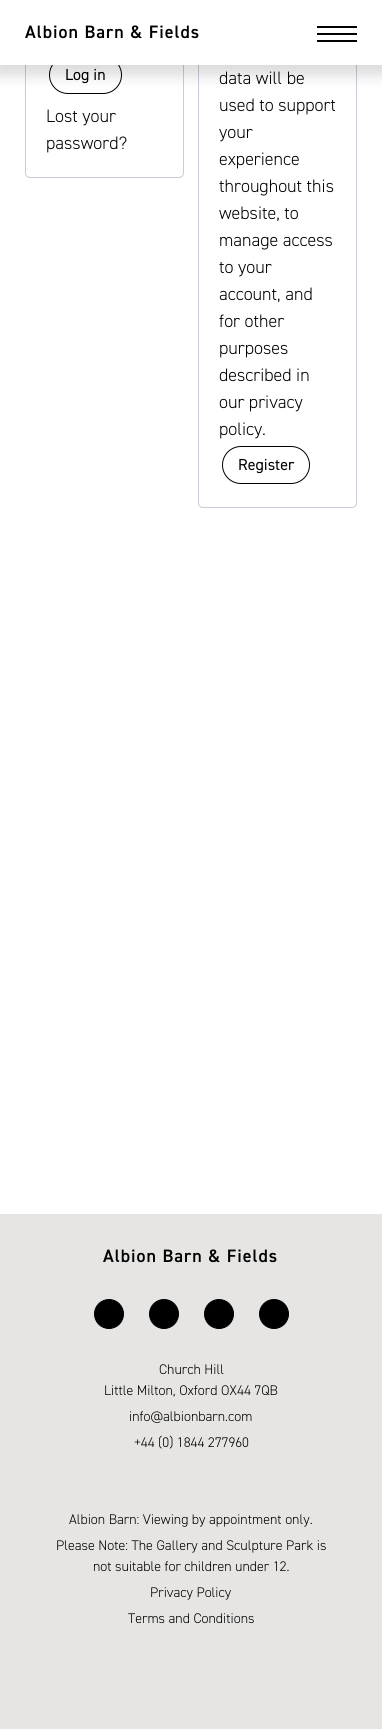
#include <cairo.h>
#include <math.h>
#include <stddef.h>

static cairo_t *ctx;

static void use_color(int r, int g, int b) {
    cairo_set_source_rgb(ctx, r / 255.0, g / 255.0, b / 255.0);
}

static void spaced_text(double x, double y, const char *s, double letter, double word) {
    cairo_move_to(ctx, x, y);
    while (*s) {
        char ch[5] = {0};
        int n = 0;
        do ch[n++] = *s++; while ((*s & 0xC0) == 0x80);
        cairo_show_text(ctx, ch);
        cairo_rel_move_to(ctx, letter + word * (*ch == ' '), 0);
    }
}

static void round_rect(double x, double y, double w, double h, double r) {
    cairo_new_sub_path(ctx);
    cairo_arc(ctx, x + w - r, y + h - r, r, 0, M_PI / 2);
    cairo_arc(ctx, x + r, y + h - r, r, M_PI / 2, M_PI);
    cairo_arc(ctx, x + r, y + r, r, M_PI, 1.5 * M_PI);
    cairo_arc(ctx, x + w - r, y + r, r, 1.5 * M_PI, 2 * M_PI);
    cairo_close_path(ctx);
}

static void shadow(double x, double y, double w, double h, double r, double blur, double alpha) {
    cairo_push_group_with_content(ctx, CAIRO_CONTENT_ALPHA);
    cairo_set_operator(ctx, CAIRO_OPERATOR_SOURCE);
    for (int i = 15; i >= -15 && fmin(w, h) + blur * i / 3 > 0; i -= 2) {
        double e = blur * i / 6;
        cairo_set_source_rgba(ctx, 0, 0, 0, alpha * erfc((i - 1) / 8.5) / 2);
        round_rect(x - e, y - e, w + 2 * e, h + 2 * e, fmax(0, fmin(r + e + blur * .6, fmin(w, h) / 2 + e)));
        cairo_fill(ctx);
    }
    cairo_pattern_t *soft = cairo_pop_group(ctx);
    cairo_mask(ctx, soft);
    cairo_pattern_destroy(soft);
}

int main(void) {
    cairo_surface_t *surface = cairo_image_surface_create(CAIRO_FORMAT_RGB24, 382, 1729);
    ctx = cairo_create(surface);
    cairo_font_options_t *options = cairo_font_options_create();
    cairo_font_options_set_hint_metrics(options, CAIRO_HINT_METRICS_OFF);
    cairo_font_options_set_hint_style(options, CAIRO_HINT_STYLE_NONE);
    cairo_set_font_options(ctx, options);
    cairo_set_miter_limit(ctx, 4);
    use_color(255, 255, 255);
    cairo_paint(ctx);
    round_rect(25.5, -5.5, 158, 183, 4.5);
    use_color(207, 200, 216);
    cairo_set_line_width(ctx, 1);
    cairo_stroke(ctx);
    round_rect(49.5, 56.5, 72, 37, 18.5);
    use_color(0, 0, 0);
    cairo_stroke(ctx);
    round_rect(198.5, -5.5, 158, 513, 4.5);
    use_color(207, 200, 216);
    cairo_stroke(ctx);
    use_color(0, 0, 0);
    shadow(-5, 0, 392, 75, 0, 7.5, 0.15);
    use_color(255, 255, 255);
    cairo_rectangle(ctx, 0, 0, 382, 65);
    cairo_fill(ctx);
    cairo_select_font_face(ctx, "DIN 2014 SemiBold", CAIRO_FONT_SLANT_NORMAL, CAIRO_FONT_WEIGHT_NORMAL);
    cairo_set_font_size(ctx, 18);
    use_color(0, 0, 0);
    spaced_text(25, 38, "Albion Barn & Fields", 1, 0);
    cairo_rectangle(ctx, 317, 26, 40, 2);
    cairo_fill(ctx);
    cairo_rectangle(ctx, 317, 33, 40, 2);
    cairo_fill(ctx);
    cairo_rectangle(ctx, 317, 40, 40, 2);
    cairo_fill(ctx);
    cairo_select_font_face(ctx, "DIN 2014", CAIRO_FONT_SLANT_NORMAL, CAIRO_FONT_WEIGHT_NORMAL);
    cairo_set_font_size(ctx, 16);
    cairo_move_to(ctx, 65, 80);
    cairo_show_text(ctx, "Log in");
    cairo_select_font_face(ctx, "DIN 2014 Light", CAIRO_FONT_SLANT_NORMAL, CAIRO_FONT_WEIGHT_NORMAL);
    cairo_set_font_size(ctx, 18);
    cairo_move_to(ctx, 46, 122);
    cairo_show_text(ctx, "Lost your");
    cairo_move_to(ctx, 46, 149);
    cairo_show_text(ctx, "password?");
    cairo_move_to(ctx, 219, 84);
    cairo_show_text(ctx, "data will be");
    cairo_move_to(ctx, 219, 111);
    cairo_show_text(ctx, "used to support");
    cairo_move_to(ctx, 219, 138);
    cairo_show_text(ctx, "your");
    cairo_move_to(ctx, 219, 165);
    cairo_show_text(ctx, "experience");
    cairo_move_to(ctx, 219, 192);
    cairo_show_text(ctx, "throughout this");
    cairo_move_to(ctx, 219, 219);
    cairo_show_text(ctx, "website, to");
    cairo_move_to(ctx, 219, 246);
    cairo_show_text(ctx, "manage access");
    cairo_move_to(ctx, 219, 273);
    cairo_show_text(ctx, "to your");
    cairo_move_to(ctx, 219, 300);
    cairo_show_text(ctx, "account, and");
    cairo_move_to(ctx, 219, 327);
    cairo_show_text(ctx, "for other");
    cairo_move_to(ctx, 219, 354);
    cairo_show_text(ctx, "purposes");
    cairo_move_to(ctx, 219, 381);
    cairo_show_text(ctx, "described in");
    cairo_move_to(ctx, 219, 408);
    cairo_show_text(ctx, "our privacy");
    cairo_move_to(ctx, 219, 435);
    cairo_show_text(ctx, "policy");
    cairo_move_to(ctx, 262, 435);
    cairo_show_text(ctx, ".");
    round_rect(222.5, 446.5, 87, 37, 18.5);
    cairo_stroke(ctx);
    cairo_select_font_face(ctx, "DIN 2014", CAIRO_FONT_SLANT_NORMAL, CAIRO_FONT_WEIGHT_NORMAL);
    cairo_set_font_size(ctx, 16);
    cairo_move_to(ctx, 238, 470);
    cairo_show_text(ctx, "Register");
    use_color(230, 229, 228);
    cairo_rectangle(ctx, 0, 1214, 382, 515);
    cairo_fill(ctx);
    cairo_select_font_face(ctx, "DIN 2014 SemiBold", CAIRO_FONT_SLANT_NORMAL, CAIRO_FONT_WEIGHT_NORMAL);
    cairo_set_font_size(ctx, 18);
    use_color(0, 0, 0);
    spaced_text(103, 1262, "Albion Barn & Fields", 1, 0);
    cairo_new_path(ctx);
    cairo_arc(ctx, 109, 1314, 14.5, 0, 2 * M_PI);
    cairo_fill_preserve(ctx);
    cairo_stroke(ctx);
    cairo_arc(ctx, 164, 1314, 14.5, 0, 2 * M_PI);
    cairo_fill_preserve(ctx);
    cairo_stroke(ctx);
    cairo_arc(ctx, 219, 1314, 14.5, 0, 2 * M_PI);
    cairo_fill_preserve(ctx);
    cairo_stroke(ctx);
    cairo_arc(ctx, 274, 1314, 14.5, 0, 2 * M_PI);
    cairo_fill_preserve(ctx);
    cairo_stroke(ctx);
    cairo_select_font_face(ctx, "DIN 2014 Light", CAIRO_FONT_SLANT_NORMAL, CAIRO_FONT_WEIGHT_NORMAL);
    cairo_set_font_size(ctx, 14);
    cairo_move_to(ctx, 159, 1374);
    cairo_show_text(ctx, "Church Hill");
    cairo_move_to(ctx, 104, 1395);
    cairo_show_text(ctx, "Little Milton, Oxford OX44 7QB");
    cairo_move_to(ctx, 129, 1421);
    cairo_show_text(ctx, "info@albionbarn.com");
    cairo_move_to(ctx, 134, 1447);
    cairo_show_text(ctx, "+44 (0) 1844 277960");
    cairo_move_to(ctx, 69, 1524);
    cairo_show_text(ctx, "Albion Barn: Viewing by appointment only.");
    cairo_move_to(ctx, 56, 1550);
    cairo_show_text(ctx, "Please Note: The Gallery and Sculpture Park is");
    cairo_move_to(ctx, 93, 1571);
    cairo_show_text(ctx, "not suitable for children under 12.");
    cairo_move_to(ctx, 150, 1597);
    cairo_show_text(ctx, "Privacy Policy");
    cairo_move_to(ctx, 128, 1623);
    cairo_show_text(ctx, "Terms and Conditions");
    cairo_surface_write_to_png(surface, "result.png");
    cairo_font_options_destroy(options);
    cairo_destroy(ctx);
    cairo_surface_destroy(surface);
    return 0;
}
